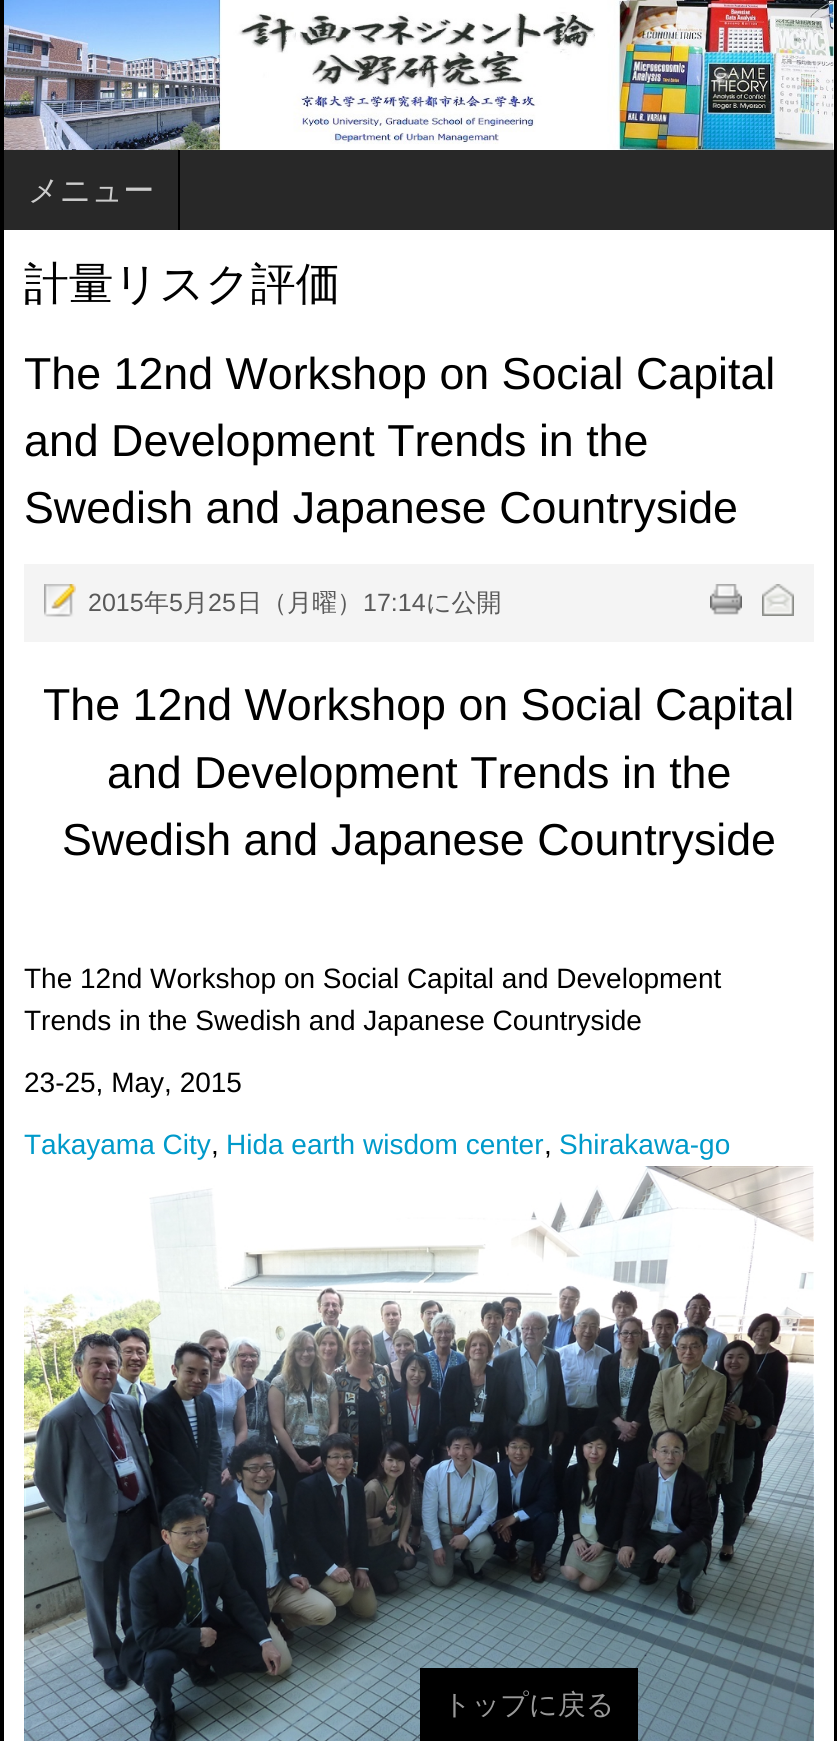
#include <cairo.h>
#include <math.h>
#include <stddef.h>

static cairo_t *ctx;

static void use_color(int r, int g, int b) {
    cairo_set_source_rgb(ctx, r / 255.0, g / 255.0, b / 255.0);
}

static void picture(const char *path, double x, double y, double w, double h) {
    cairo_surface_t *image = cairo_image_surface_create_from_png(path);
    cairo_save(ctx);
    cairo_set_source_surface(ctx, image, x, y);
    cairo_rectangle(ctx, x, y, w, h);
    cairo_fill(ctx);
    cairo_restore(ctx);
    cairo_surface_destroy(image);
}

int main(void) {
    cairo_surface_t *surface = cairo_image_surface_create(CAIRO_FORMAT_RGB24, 837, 1741);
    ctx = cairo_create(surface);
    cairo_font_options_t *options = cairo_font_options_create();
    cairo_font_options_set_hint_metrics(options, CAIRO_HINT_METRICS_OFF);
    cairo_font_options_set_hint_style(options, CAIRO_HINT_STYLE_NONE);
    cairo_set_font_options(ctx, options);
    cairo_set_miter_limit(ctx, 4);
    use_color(0, 0, 0);
    cairo_paint(ctx);
    picture("img1.png", 4, 0, 830, 150);
    use_color(40, 40, 40);
    cairo_rectangle(ctx, 4, 150, 830, 80);
    cairo_fill(ctx);
    use_color(0, 0, 0);
    cairo_rectangle(ctx, 178, 150, 2, 80);
    cairo_fill(ctx);
    cairo_select_font_face(ctx, "WenQuanYi Zen Hei Medium", CAIRO_FONT_SLANT_NORMAL, CAIRO_FONT_WEIGHT_NORMAL);
    cairo_set_font_size(ctx, 31);
    use_color(204, 204, 204);
    cairo_move_to(ctx, 28, 201);
    cairo_show_text(ctx, "メニュー");
    use_color(255, 255, 255);
    cairo_rectangle(ctx, 4, 230, 830, 1511);
    cairo_fill(ctx);
    cairo_set_font_size(ctx, 44.75);
    use_color(0, 0, 0);
    cairo_move_to(ctx, 24, 299);
    cairo_show_text(ctx, "計量リスク評価");
    cairo_select_font_face(ctx, "Liberation Sans", CAIRO_FONT_SLANT_NORMAL, CAIRO_FONT_WEIGHT_NORMAL);
    cairo_move_to(ctx, 24, 389);
    cairo_show_text(ctx, "The 12nd Workshop on Social Capital");
    cairo_move_to(ctx, 24, 456);
    cairo_show_text(ctx, "and Development Trends in the");
    cairo_move_to(ctx, 24, 523);
    cairo_show_text(ctx, "Swedish and Japanese Countryside");
    use_color(244, 244, 244);
    cairo_rectangle(ctx, 24, 564, 790, 78);
    cairo_fill(ctx);
    picture("img2.png", 44, 584, 32, 33);
    cairo_set_font_size(ctx, 25);
    use_color(89, 89, 89);
    cairo_move_to(ctx, 88, 611);
    cairo_show_text(ctx, "2015");
    cairo_select_font_face(ctx, "WenQuanYi Zen Hei Medium", CAIRO_FONT_SLANT_NORMAL, CAIRO_FONT_WEIGHT_NORMAL);
    cairo_move_to(ctx, 144, 611);
    cairo_show_text(ctx, "年");
    cairo_select_font_face(ctx, "Liberation Sans", CAIRO_FONT_SLANT_NORMAL, CAIRO_FONT_WEIGHT_NORMAL);
    cairo_move_to(ctx, 169, 611);
    cairo_show_text(ctx, "5");
    cairo_select_font_face(ctx, "WenQuanYi Zen Hei Medium", CAIRO_FONT_SLANT_NORMAL, CAIRO_FONT_WEIGHT_NORMAL);
    cairo_move_to(ctx, 183, 611);
    cairo_show_text(ctx, "月");
    cairo_select_font_face(ctx, "Liberation Sans", CAIRO_FONT_SLANT_NORMAL, CAIRO_FONT_WEIGHT_NORMAL);
    cairo_move_to(ctx, 208, 611);
    cairo_show_text(ctx, "25");
    cairo_select_font_face(ctx, "WenQuanYi Zen Hei Medium", CAIRO_FONT_SLANT_NORMAL, CAIRO_FONT_WEIGHT_NORMAL);
    cairo_move_to(ctx, 237, 611);
    cairo_show_text(ctx, "日（月曜）");
    cairo_select_font_face(ctx, "Liberation Sans", CAIRO_FONT_SLANT_NORMAL, CAIRO_FONT_WEIGHT_NORMAL);
    cairo_move_to(ctx, 363, 611);
    cairo_show_text(ctx, "17:14");
    cairo_select_font_face(ctx, "WenQuanYi Zen Hei Medium", CAIRO_FONT_SLANT_NORMAL, CAIRO_FONT_WEIGHT_NORMAL);
    cairo_move_to(ctx, 426, 611);
    cairo_show_text(ctx, "に公開");
    picture("img3.png", 710, 584, 32, 31);
    picture("img4.png", 762, 584, 32, 32);
    cairo_select_font_face(ctx, "Liberation Sans", CAIRO_FONT_SLANT_NORMAL, CAIRO_FONT_WEIGHT_NORMAL);
    cairo_set_font_size(ctx, 44.75);
    use_color(0, 0, 0);
    cairo_move_to(ctx, 43, 720);
    cairo_show_text(ctx, "The 12nd Workshop on Social Capital");
    cairo_move_to(ctx, 107, 788);
    cairo_show_text(ctx, "and Development Trends in the");
    cairo_move_to(ctx, 62, 855);
    cairo_show_text(ctx, "Swedish and Japanese Countryside");
    cairo_set_font_size(ctx, 28);
    cairo_move_to(ctx, 24, 988);
    cairo_show_text(ctx, "The 12nd Workshop on Social Capital and Development");
    cairo_move_to(ctx, 24, 1030);
    cairo_show_text(ctx, "Trends in the Swedish and Japanese Countryside");
    cairo_move_to(ctx, 24, 1092);
    cairo_show_text(ctx, "23-25, May, 2015");
    use_color(0, 154, 202);
    cairo_move_to(ctx, 24, 1154);
    cairo_show_text(ctx, "Takayama City");
    use_color(0, 0, 0);
    cairo_move_to(ctx, 211, 1154);
    cairo_show_text(ctx, ",");
    use_color(0, 154, 202);
    cairo_move_to(ctx, 226, 1154);
    cairo_show_text(ctx, "Hida earth wisdom center");
    use_color(0, 0, 0);
    cairo_move_to(ctx, 544, 1154);
    cairo_show_text(ctx, ",");
    use_color(0, 154, 202);
    cairo_move_to(ctx, 559, 1154);
    cairo_show_text(ctx, "Shirakawa-go");
    picture("img5.png", 24, 1166, 790, 575);
    use_color(0, 0, 0);
    cairo_rectangle(ctx, 420, 1668, 218, 73);
    cairo_fill(ctx);
    cairo_select_font_face(ctx, "WenQuanYi Zen Hei Medium", CAIRO_FONT_SLANT_NORMAL, CAIRO_FONT_WEIGHT_NORMAL);
    use_color(153, 153, 153);
    cairo_move_to(ctx, 443, 1714);
    cairo_show_text(ctx, "トップに戻る");
    cairo_surface_write_to_png(surface, "result.png");
    cairo_font_options_destroy(options);
    cairo_destroy(ctx);
    cairo_surface_destroy(surface);
    return 0;
}
